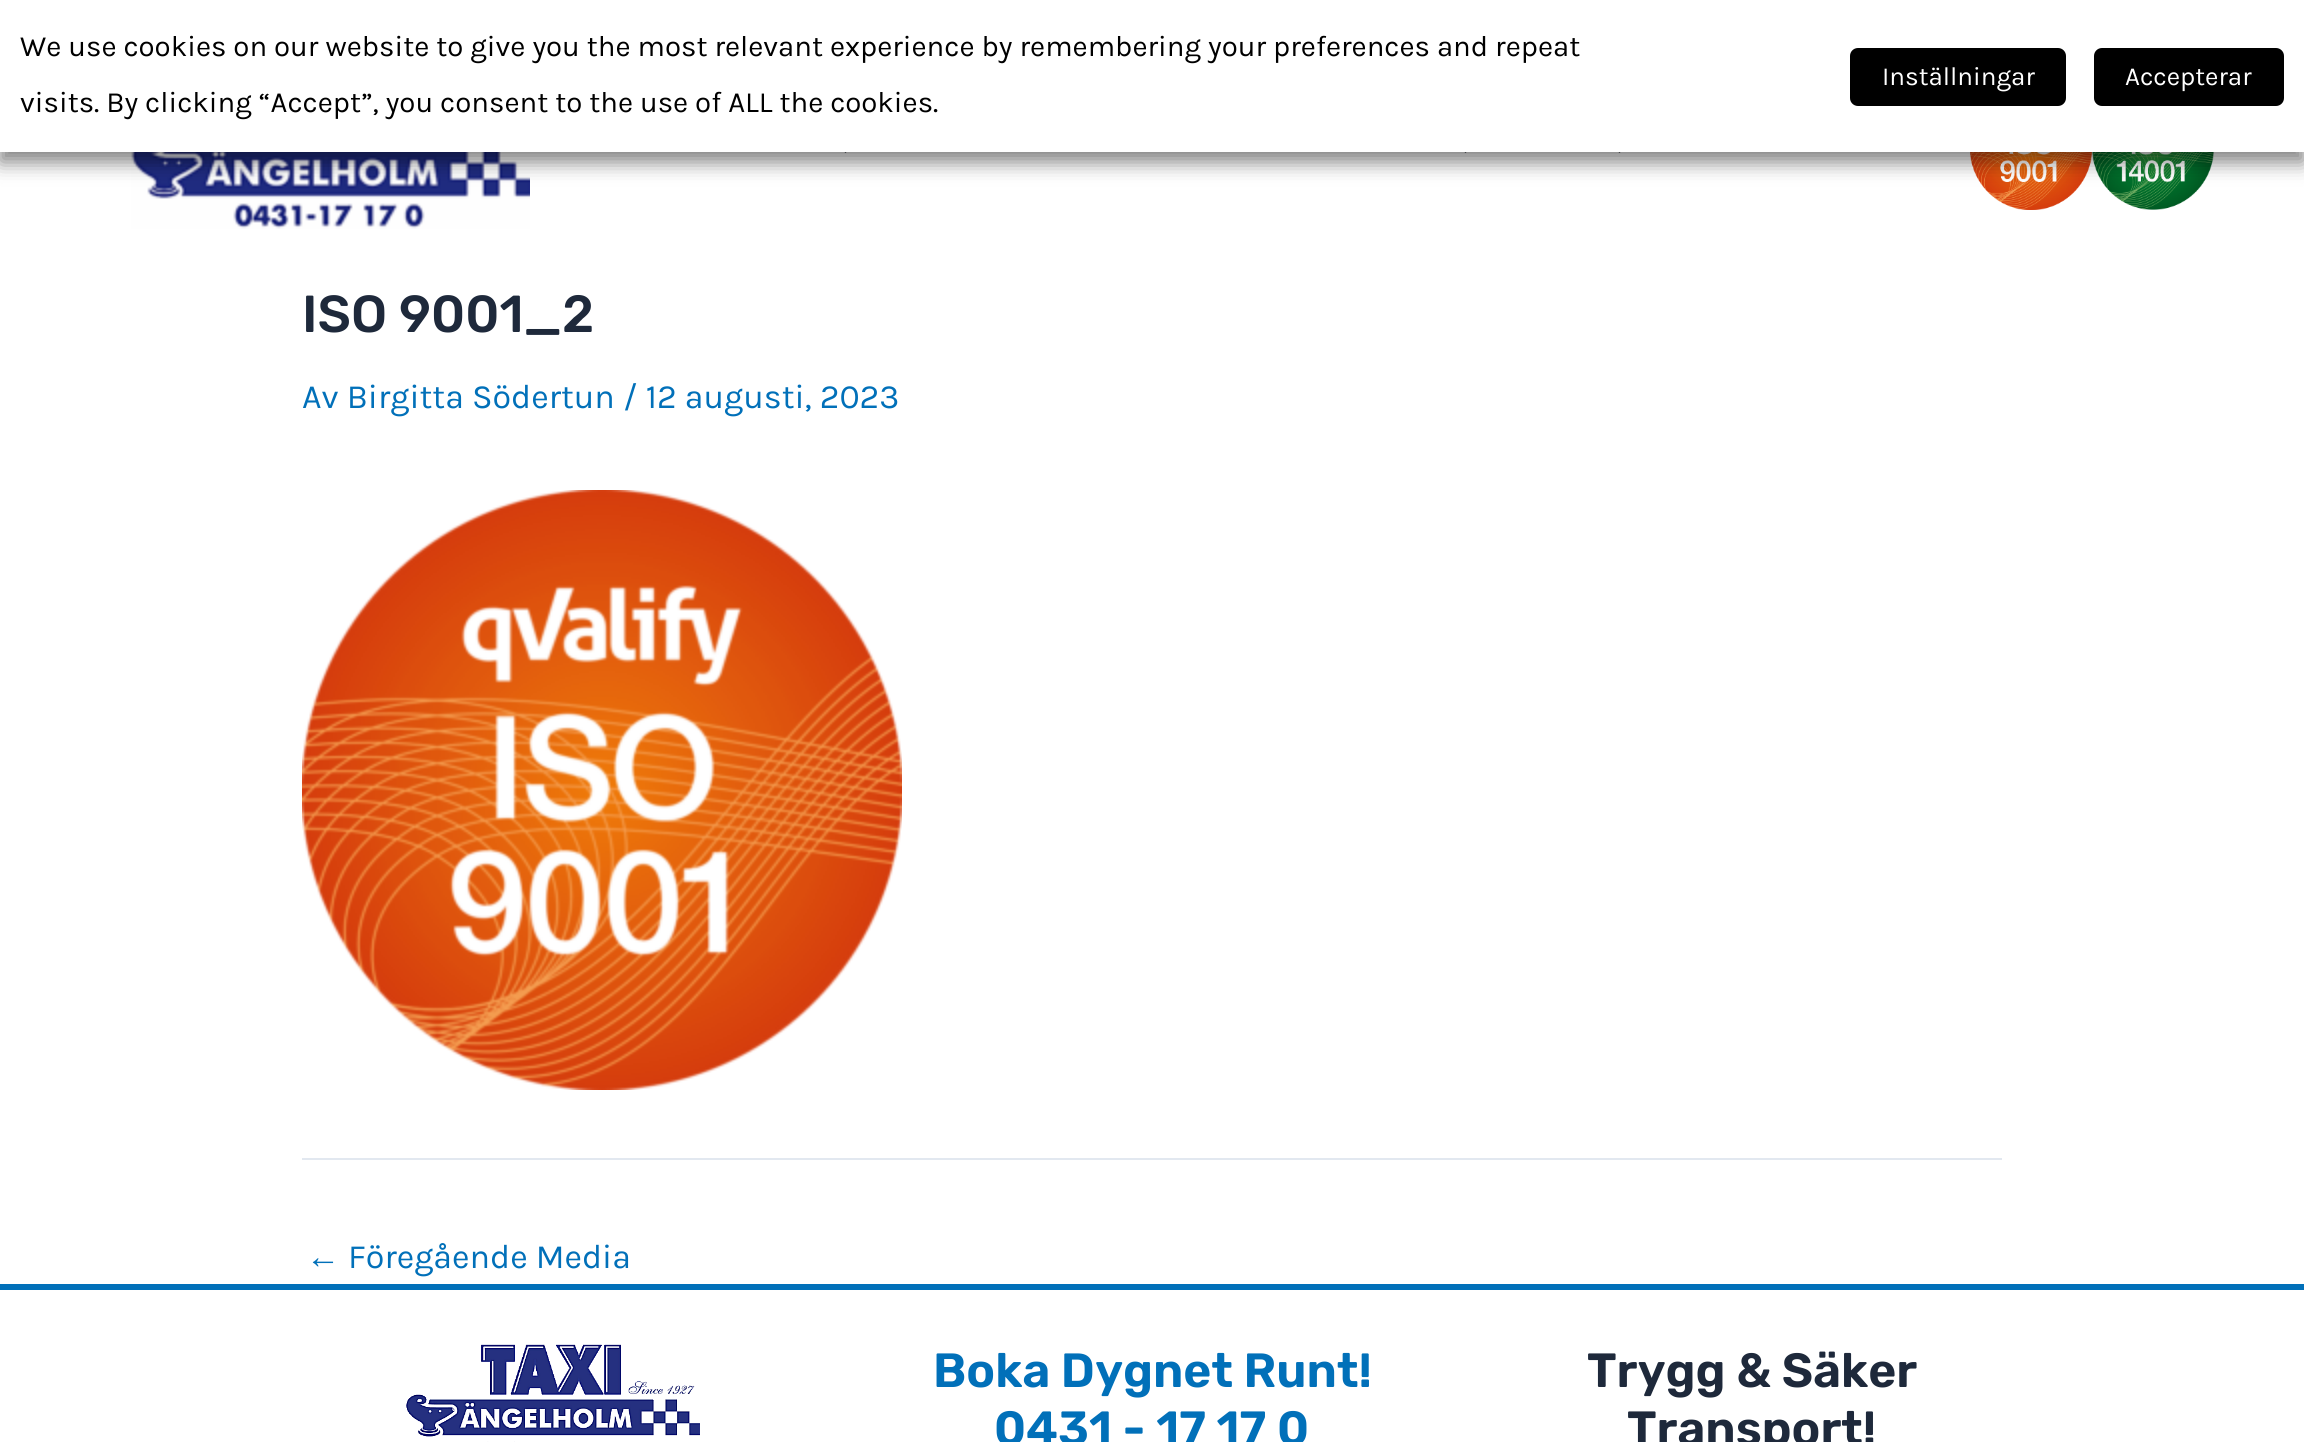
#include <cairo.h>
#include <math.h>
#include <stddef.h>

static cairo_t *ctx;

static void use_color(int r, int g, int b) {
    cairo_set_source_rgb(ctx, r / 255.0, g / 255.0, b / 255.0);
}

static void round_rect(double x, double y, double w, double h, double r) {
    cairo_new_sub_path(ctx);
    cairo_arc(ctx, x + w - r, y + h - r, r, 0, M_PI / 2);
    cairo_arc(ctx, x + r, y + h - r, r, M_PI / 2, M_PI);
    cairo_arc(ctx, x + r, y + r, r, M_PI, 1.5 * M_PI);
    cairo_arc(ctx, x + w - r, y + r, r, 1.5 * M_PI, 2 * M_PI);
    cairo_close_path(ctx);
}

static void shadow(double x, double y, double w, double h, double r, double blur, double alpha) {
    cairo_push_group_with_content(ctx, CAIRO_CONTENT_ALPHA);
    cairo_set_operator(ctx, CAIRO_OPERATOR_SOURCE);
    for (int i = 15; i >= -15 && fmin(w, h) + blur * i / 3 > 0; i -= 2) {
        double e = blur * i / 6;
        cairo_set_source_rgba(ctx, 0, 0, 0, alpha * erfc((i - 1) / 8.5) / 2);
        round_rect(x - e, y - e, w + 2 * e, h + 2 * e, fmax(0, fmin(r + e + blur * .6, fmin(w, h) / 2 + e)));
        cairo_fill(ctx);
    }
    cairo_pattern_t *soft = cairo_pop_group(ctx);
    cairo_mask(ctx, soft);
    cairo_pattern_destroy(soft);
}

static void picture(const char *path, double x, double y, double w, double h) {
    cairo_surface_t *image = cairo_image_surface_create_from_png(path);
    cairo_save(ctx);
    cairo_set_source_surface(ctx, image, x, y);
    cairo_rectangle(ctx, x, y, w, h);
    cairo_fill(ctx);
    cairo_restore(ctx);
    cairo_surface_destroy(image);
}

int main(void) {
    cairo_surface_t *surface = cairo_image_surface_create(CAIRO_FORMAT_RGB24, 2304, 1442);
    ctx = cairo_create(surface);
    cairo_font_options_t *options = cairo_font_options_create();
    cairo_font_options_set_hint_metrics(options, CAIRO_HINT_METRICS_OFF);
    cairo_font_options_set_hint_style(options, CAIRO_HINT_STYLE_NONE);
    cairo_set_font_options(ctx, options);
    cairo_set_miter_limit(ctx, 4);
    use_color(255, 255, 255);
    cairo_paint(ctx);
    use_color(75, 79, 88);
    cairo_new_path(ctx);
    cairo_move_to(ctx, 836.5, 144);
    cairo_line_to(ctx, 845.5, 153);
    cairo_line_to(ctx, 855, 144);
    cairo_line_to(ctx, 853, 142);
    cairo_line_to(ctx, 845.5, 149.5);
    cairo_line_to(ctx, 838, 142);
    cairo_close_path(ctx);
    cairo_fill(ctx);
    cairo_new_path(ctx);
    cairo_move_to(ctx, 1456.5, 144);
    cairo_line_to(ctx, 1465.5, 153);
    cairo_line_to(ctx, 1475, 144);
    cairo_line_to(ctx, 1473, 142);
    cairo_line_to(ctx, 1465.5, 149.5);
    cairo_line_to(ctx, 1458, 142);
    cairo_close_path(ctx);
    cairo_fill(ctx);
    cairo_new_path(ctx);
    cairo_move_to(ctx, 1610.5, 144);
    cairo_line_to(ctx, 1619.5, 153);
    cairo_line_to(ctx, 1629, 144);
    cairo_line_to(ctx, 1627, 142);
    cairo_line_to(ctx, 1619.5, 149.5);
    cairo_line_to(ctx, 1612, 142);
    cairo_close_path(ctx);
    cairo_fill(ctx);
    picture("img1.png", 131, 152, 399, 77);
    picture("img2.png", 1970, 152, 122, 58);
    picture("img3.png", 2092, 152, 122, 58);
    use_color(0, 0, 0);
    shadow(0, 10, 2304, 152, 0, 10, 0.5);
    use_color(255, 255, 255);
    cairo_rectangle(ctx, 0, 0, 2304, 152);
    cairo_fill(ctx);
    cairo_select_font_face(ctx, "Karla", CAIRO_FONT_SLANT_NORMAL, CAIRO_FONT_WEIGHT_NORMAL);
    cairo_set_font_size(ctx, 29.33);
    use_color(0, 0, 0);
    cairo_move_to(ctx, 20, 56);
    cairo_show_text(ctx, "We use cookies on our website to give you the most relevant experience by remembering your preferences and repeat");
    cairo_move_to(ctx, 20, 112);
    cairo_show_text(ctx, "visits. By clicking “Accept”, you consent to the use of ALL the cookies.");
    round_rect(1850, 48, 216, 58, 8);
    cairo_fill(ctx);
    cairo_set_font_size(ctx, 26);
    use_color(255, 255, 255);
    cairo_move_to(ctx, 1882, 85);
    cairo_show_text(ctx, "Inställningar");
    use_color(0, 0, 0);
    round_rect(2094, 48, 190, 58, 8);
    cairo_fill(ctx);
    use_color(255, 255, 255);
    cairo_move_to(ctx, 2125, 85);
    cairo_show_text(ctx, "Accepterar");
    cairo_select_font_face(ctx, "Rubik Medium", CAIRO_FONT_SLANT_NORMAL, CAIRO_FONT_WEIGHT_NORMAL);
    cairo_set_font_size(ctx, 52);
    use_color(30, 41, 59);
    cairo_move_to(ctx, 302, 332);
    cairo_show_text(ctx, "ISO 9001_2");
    cairo_select_font_face(ctx, "Karla", CAIRO_FONT_SLANT_NORMAL, CAIRO_FONT_WEIGHT_NORMAL);
    cairo_set_font_size(ctx, 34);
    use_color(1, 112, 185);
    cairo_move_to(ctx, 302, 408);
    cairo_show_text(ctx, "Av Birgitta Södertun / 12 augusti, 2023");
    picture("img4.png", 302, 490, 600, 600);
    use_color(226, 232, 240);
    cairo_rectangle(ctx, 302, 1158, 1700, 2);
    cairo_fill(ctx);
    cairo_select_font_face(ctx, "Liberation Sans", CAIRO_FONT_SLANT_NORMAL, CAIRO_FONT_WEIGHT_NORMAL);
    use_color(1, 112, 185);
    cairo_move_to(ctx, 306, 1268);
    cairo_show_text(ctx, "←");
    cairo_select_font_face(ctx, "Karla", CAIRO_FONT_SLANT_NORMAL, CAIRO_FONT_WEIGHT_NORMAL);
    cairo_move_to(ctx, 348, 1268);
    cairo_show_text(ctx, "Föregående Media");
    cairo_rectangle(ctx, 0, 1284, 2304, 6);
    cairo_fill(ctx);
    picture("img5.png", 406, 1344, 294, 98);
    cairo_select_font_face(ctx, "Rubik SemiBold", CAIRO_FONT_SLANT_NORMAL, CAIRO_FONT_WEIGHT_NORMAL);
    cairo_set_font_size(ctx, 48);
    cairo_move_to(ctx, 933, 1387);
    cairo_show_text(ctx, "Boka Dygnet Runt!");
    cairo_move_to(ctx, 994, 1445);
    cairo_show_text(ctx, "0431 - 17 17 0");
    use_color(30, 41, 59);
    cairo_move_to(ctx, 1587, 1387);
    cairo_show_text(ctx, "Trygg & Säker");
    cairo_move_to(ctx, 1627, 1445);
    cairo_show_text(ctx, "Transport!");
    cairo_surface_write_to_png(surface, "result.png");
    cairo_font_options_destroy(options);
    cairo_destroy(ctx);
    cairo_surface_destroy(surface);
    return 0;
}
